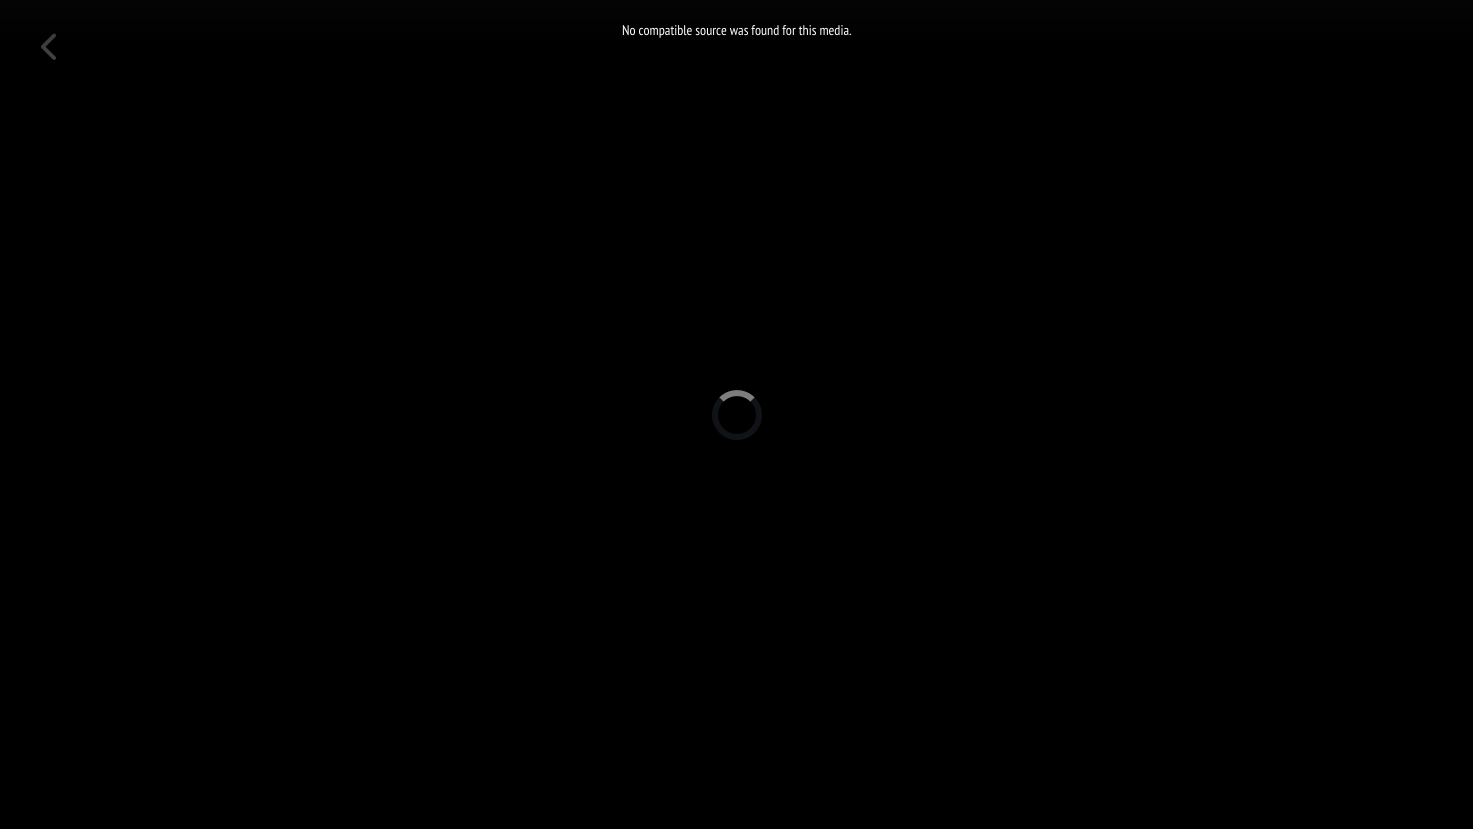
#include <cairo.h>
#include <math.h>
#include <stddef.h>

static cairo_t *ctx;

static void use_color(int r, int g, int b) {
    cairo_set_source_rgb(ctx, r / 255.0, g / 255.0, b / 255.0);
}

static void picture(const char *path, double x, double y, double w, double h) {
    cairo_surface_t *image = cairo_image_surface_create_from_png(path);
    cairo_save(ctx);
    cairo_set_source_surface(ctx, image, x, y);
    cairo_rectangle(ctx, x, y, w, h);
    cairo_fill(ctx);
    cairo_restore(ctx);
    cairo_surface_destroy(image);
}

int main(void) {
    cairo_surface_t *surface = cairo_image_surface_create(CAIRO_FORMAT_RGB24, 1473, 829);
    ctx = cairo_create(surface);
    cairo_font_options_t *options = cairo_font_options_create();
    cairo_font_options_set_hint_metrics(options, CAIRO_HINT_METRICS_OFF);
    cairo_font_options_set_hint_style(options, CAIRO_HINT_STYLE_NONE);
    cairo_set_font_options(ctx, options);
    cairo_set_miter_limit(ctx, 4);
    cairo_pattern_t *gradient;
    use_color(0, 0, 0);
    cairo_paint(ctx);
    gradient = cairo_pattern_create_linear(737, 0, 737, 114);
    cairo_pattern_add_color_stop_rgba(gradient, 0, 0.078, 0.078, 0.078, 1);
    cairo_pattern_add_color_stop_rgba(gradient, 0.4, 0, 0, 0, 1);
    cairo_set_source(ctx, gradient);
    cairo_pattern_destroy(gradient);
    cairo_rectangle(ctx, 0, 0, 1473, 40);
    cairo_fill(ctx);
    picture("img1.png", 41, 33, 15, 27);
    cairo_arc(ctx, 737, 415, 22, 0, 2 * M_PI);
    use_color(26, 30, 38);
    cairo_set_line_width(ctx, 6);
    cairo_stroke(ctx);
    cairo_new_path(ctx);
    cairo_move_to(ctx, 721.5, 399.5);
    cairo_curve_to(ctx, 730, 391, 744, 391, 752.5, 399.5);
    cairo_move_to(ctx, 721.5, 399.5);
    cairo_curve_to(ctx, 730, 391, 744, 391, 752.5, 399.5);
    use_color(217, 217, 217);
    cairo_stroke(ctx);
    gradient = cairo_pattern_create_linear(737, 0, 737, 829);
    cairo_pattern_add_color_stop_rgba(gradient, 0, 0, 0, 0, 0.8);
    cairo_pattern_add_color_stop_rgba(gradient, 1, 0, 0, 0, 0);
    cairo_set_source(ctx, gradient);
    cairo_pattern_destroy(gradient);
    cairo_rectangle(ctx, 0, 0, 1473, 440);
    cairo_fill(ctx);
    cairo_select_font_face(ctx, "PT Sans Narrow", CAIRO_FONT_SLANT_NORMAL, CAIRO_FONT_WEIGHT_NORMAL);
    cairo_set_font_size(ctx, 14);
    use_color(255, 255, 255);
    cairo_move_to(ctx, 622, 35);
    cairo_show_text(ctx, "No compatible source was found for this media.");
    cairo_surface_write_to_png(surface, "result.png");
    cairo_font_options_destroy(options);
    cairo_destroy(ctx);
    cairo_surface_destroy(surface);
    return 0;
}
